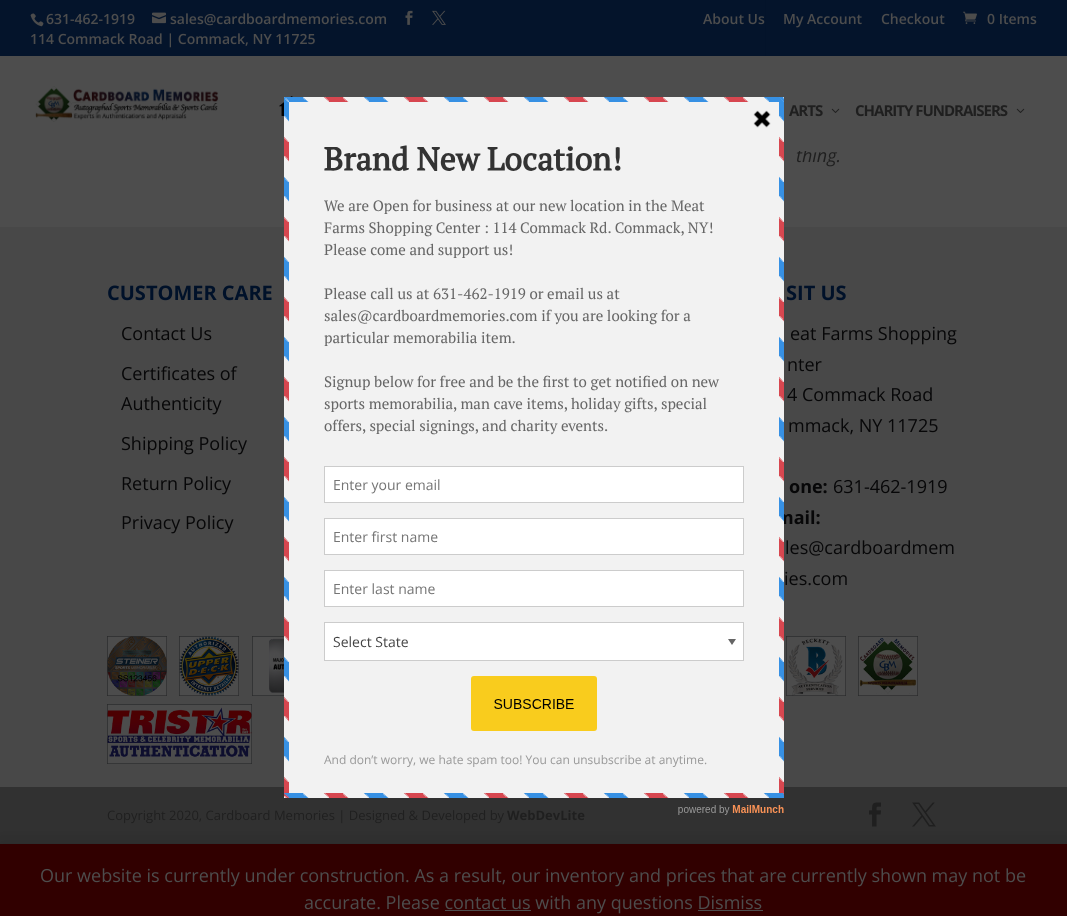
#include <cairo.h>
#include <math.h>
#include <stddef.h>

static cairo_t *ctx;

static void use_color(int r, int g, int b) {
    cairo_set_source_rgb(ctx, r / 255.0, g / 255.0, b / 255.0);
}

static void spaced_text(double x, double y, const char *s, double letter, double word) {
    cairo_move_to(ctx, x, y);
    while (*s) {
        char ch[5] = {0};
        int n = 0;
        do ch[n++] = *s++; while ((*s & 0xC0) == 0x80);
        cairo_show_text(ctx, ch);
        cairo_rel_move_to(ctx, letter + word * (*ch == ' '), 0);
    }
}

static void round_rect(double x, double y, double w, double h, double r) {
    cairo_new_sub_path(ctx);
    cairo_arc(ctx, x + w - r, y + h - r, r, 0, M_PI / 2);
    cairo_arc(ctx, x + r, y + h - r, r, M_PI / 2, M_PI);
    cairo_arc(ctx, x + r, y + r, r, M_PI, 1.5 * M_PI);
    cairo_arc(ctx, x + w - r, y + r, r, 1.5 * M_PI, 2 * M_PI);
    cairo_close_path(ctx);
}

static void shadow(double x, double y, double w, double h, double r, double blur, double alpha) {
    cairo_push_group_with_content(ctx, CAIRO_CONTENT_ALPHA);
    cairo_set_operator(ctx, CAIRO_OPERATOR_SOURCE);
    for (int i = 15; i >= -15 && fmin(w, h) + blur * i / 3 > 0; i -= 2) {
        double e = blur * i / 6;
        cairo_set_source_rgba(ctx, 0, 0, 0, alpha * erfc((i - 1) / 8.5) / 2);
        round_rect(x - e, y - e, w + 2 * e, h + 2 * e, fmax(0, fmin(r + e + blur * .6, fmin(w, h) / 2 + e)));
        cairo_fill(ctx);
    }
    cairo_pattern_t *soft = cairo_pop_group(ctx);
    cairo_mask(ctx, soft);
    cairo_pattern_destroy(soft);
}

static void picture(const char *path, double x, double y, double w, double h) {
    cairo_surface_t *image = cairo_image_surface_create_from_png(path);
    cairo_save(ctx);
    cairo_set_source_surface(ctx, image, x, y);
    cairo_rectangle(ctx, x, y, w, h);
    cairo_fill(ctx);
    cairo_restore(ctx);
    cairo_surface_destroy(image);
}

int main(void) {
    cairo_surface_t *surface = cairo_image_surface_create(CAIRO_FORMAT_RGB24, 1067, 916);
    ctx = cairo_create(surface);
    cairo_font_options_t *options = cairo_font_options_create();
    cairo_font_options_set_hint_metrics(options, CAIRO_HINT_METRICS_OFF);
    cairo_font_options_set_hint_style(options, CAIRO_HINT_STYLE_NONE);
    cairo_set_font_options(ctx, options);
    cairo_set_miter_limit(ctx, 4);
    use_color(77, 77, 77);
    cairo_paint(ctx);
    use_color(68, 68, 68);
    cairo_rectangle(ctx, 765, 0, 1, 56);
    cairo_fill(ctx);
    cairo_set_source_rgba(ctx, 0, 0.067, 0.161, 0.95);
    cairo_rectangle(ctx, 0, 0, 1067, 56);
    cairo_fill(ctx);
    picture("img1.png", 30, 13, 14, 14);
    cairo_select_font_face(ctx, "Open Sans SemiBold", CAIRO_FONT_SLANT_NORMAL, CAIRO_FONT_WEIGHT_NORMAL);
    cairo_set_font_size(ctx, 14);
    use_color(77, 77, 77);
    cairo_move_to(ctx, 46, 24);
    cairo_show_text(ctx, "631-462-1919");
    picture("img2.png", 152, 12, 14, 12);
    cairo_move_to(ctx, 170, 24);
    cairo_show_text(ctx, "sales@cardboardmemories.com");
    picture("img3.png", 405, 10, 8, 15);
    picture("img4.png", 432, 10, 14, 15);
    cairo_move_to(ctx, 30, 44);
    cairo_show_text(ctx, "114 Commack Road | Commack, NY 11725");
    cairo_move_to(ctx, 703, 24);
    cairo_show_text(ctx, "About Us");
    cairo_move_to(ctx, 783, 24);
    cairo_show_text(ctx, "My Account");
    cairo_move_to(ctx, 881, 24);
    cairo_show_text(ctx, "Checkout");
    picture("img5.png", 963, 11, 14, 13);
    cairo_move_to(ctx, 987, 24);
    cairo_show_text(ctx, "0 Items");
    cairo_select_font_face(ctx, "Open Sans", CAIRO_FONT_SLANT_ITALIC, CAIRO_FONT_WEIGHT_NORMAL);
    cairo_set_font_size(ctx, 18);
    use_color(31, 31, 31);
    cairo_move_to(ctx, 796, 162);
    cairo_show_text(ctx, "thing.");
    use_color(77, 77, 77);
    cairo_rectangle(ctx, 799, 148, 19, 3);
    cairo_fill(ctx);
    picture("img6.png", 35, 86, 184, 36);
    picture("img7.png", 279, 96, 14, 20);
    cairo_select_font_face(ctx, "Open Sans", CAIRO_FONT_SLANT_NORMAL, CAIRO_FONT_WEIGHT_BOLD);
    cairo_set_font_size(ctx, 15);
    use_color(31, 31, 31);
    spaced_text(789, 116, "ARTS", -1, 0);
    picture("img8.png", 831, 108, 9, 5);
    spaced_text(855, 116, "CHARITY FUNDRAISERS", -1, 0);
    picture("img8.png", 1016, 108, 9, 5);
    use_color(72, 72, 72);
    cairo_rectangle(ctx, 0, 227, 1067, 560);
    cairo_fill(ctx);
    cairo_set_font_size(ctx, 20);
    use_color(0, 17, 41);
    cairo_move_to(ctx, 107, 300);
    cairo_show_text(ctx, "CUSTOMER CARE");
    cairo_select_font_face(ctx, "Open Sans", CAIRO_FONT_SLANT_NORMAL, CAIRO_FONT_WEIGHT_NORMAL);
    cairo_set_font_size(ctx, 18);
    use_color(7, 7, 8);
    cairo_move_to(ctx, 121, 340);
    cairo_show_text(ctx, "Contact Us");
    cairo_move_to(ctx, 121, 380);
    cairo_show_text(ctx, "Certificates of");
    cairo_move_to(ctx, 121, 410);
    cairo_show_text(ctx, "Authenticity");
    cairo_move_to(ctx, 121, 450);
    cairo_show_text(ctx, "Shipping Policy");
    cairo_move_to(ctx, 121, 490);
    cairo_show_text(ctx, "Return Policy");
    cairo_move_to(ctx, 121, 529);
    cairo_show_text(ctx, "Privacy Policy");
    cairo_select_font_face(ctx, "Open Sans", CAIRO_FONT_SLANT_NORMAL, CAIRO_FONT_WEIGHT_BOLD);
    cairo_set_font_size(ctx, 20);
    use_color(0, 17, 41);
    cairo_move_to(ctx, 786, 300);
    cairo_show_text(ctx, "SIT US");
    cairo_select_font_face(ctx, "Open Sans", CAIRO_FONT_SLANT_NORMAL, CAIRO_FONT_WEIGHT_NORMAL);
    cairo_set_font_size(ctx, 18);
    use_color(7, 7, 8);
    cairo_move_to(ctx, 790, 340);
    cairo_show_text(ctx, "eat Farms Shopping");
    cairo_move_to(ctx, 787, 371);
    cairo_show_text(ctx, "nter");
    cairo_move_to(ctx, 787, 401);
    cairo_show_text(ctx, "4 Commack Road");
    cairo_move_to(ctx, 788, 432);
    cairo_show_text(ctx, "mmack, NY 11725");
    cairo_select_font_face(ctx, "Open Sans", CAIRO_FONT_SLANT_NORMAL, CAIRO_FONT_WEIGHT_BOLD);
    cairo_move_to(ctx, 789, 493);
    cairo_show_text(ctx, "one:");
    cairo_select_font_face(ctx, "Open Sans", CAIRO_FONT_SLANT_NORMAL, CAIRO_FONT_WEIGHT_NORMAL);
    cairo_move_to(ctx, 833, 493);
    cairo_show_text(ctx, "631-462-1919");
    cairo_select_font_face(ctx, "Open Sans", CAIRO_FONT_SLANT_NORMAL, CAIRO_FONT_WEIGHT_BOLD);
    cairo_move_to(ctx, 776, 524);
    cairo_show_text(ctx, "mail:");
    cairo_select_font_face(ctx, "Open Sans", CAIRO_FONT_SLANT_NORMAL, CAIRO_FONT_WEIGHT_NORMAL);
    cairo_move_to(ctx, 785, 554);
    cairo_show_text(ctx, "les@cardboardmem");
    cairo_move_to(ctx, 784, 585);
    cairo_show_text(ctx, "ies.com");
    picture("img9.png", 107, 636, 60, 60);
    picture("img10.png", 179, 636, 60, 60);
    picture("img11.png", 252, 636, 32, 60);
    picture("img12.png", 786, 636, 60, 60);
    picture("img13.png", 858, 636, 60, 60);
    picture("img14.png", 107, 704, 145, 60);
    use_color(49, 49, 49);
    cairo_rectangle(ctx, 0, 787, 1067, 57);
    cairo_fill(ctx);
    cairo_set_font_size(ctx, 13);
    use_color(31, 31, 31);
    cairo_move_to(ctx, 107, 820);
    cairo_show_text(ctx, "Copyright 2020, Cardboard Memories | Designed & Developed by");
    cairo_select_font_face(ctx, "Open Sans", CAIRO_FONT_SLANT_NORMAL, CAIRO_FONT_WEIGHT_BOLD);
    cairo_move_to(ctx, 507, 820);
    cairo_show_text(ctx, "WebDevLite");
    picture("img15.png", 869, 802, 12, 25);
    picture("img16.png", 912, 802, 24, 25);
    picture("img17.png", 284, 97, 500, 718);
    use_color(0, 0, 0);
    shadow(0, 845, 1067, 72, 0, 9, 0.2);
    use_color(49, 0, 0);
    cairo_rectangle(ctx, 0, 844, 1067, 72);
    cairo_fill(ctx);
    cairo_select_font_face(ctx, "Open Sans", CAIRO_FONT_SLANT_NORMAL, CAIRO_FONT_WEIGHT_NORMAL);
    cairo_set_font_size(ctx, 18);
    use_color(77, 77, 77);
    cairo_move_to(ctx, 40, 882);
    cairo_show_text(ctx, "Our website is currently under construction. As a result, our inventory and prices that are currently shown may not be");
    cairo_move_to(ctx, 304, 909);
    cairo_show_text(ctx, "accurate. Please contact us with any questions Dismiss");
    use_color(76, 75, 76);
    cairo_rectangle(ctx, 445, 910, 86, 1);
    cairo_fill(ctx);
    cairo_rectangle(ctx, 698, 910, 65, 1);
    cairo_fill(ctx);
    cairo_surface_write_to_png(surface, "result.png");
    cairo_font_options_destroy(options);
    cairo_destroy(ctx);
    cairo_surface_destroy(surface);
    return 0;
}
